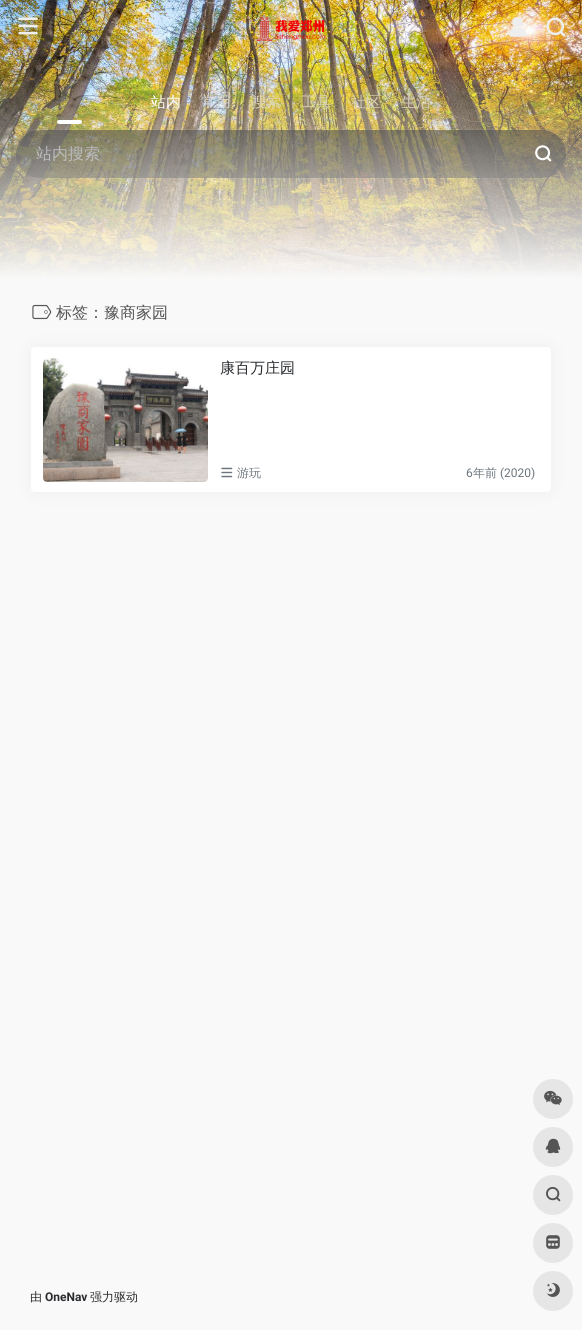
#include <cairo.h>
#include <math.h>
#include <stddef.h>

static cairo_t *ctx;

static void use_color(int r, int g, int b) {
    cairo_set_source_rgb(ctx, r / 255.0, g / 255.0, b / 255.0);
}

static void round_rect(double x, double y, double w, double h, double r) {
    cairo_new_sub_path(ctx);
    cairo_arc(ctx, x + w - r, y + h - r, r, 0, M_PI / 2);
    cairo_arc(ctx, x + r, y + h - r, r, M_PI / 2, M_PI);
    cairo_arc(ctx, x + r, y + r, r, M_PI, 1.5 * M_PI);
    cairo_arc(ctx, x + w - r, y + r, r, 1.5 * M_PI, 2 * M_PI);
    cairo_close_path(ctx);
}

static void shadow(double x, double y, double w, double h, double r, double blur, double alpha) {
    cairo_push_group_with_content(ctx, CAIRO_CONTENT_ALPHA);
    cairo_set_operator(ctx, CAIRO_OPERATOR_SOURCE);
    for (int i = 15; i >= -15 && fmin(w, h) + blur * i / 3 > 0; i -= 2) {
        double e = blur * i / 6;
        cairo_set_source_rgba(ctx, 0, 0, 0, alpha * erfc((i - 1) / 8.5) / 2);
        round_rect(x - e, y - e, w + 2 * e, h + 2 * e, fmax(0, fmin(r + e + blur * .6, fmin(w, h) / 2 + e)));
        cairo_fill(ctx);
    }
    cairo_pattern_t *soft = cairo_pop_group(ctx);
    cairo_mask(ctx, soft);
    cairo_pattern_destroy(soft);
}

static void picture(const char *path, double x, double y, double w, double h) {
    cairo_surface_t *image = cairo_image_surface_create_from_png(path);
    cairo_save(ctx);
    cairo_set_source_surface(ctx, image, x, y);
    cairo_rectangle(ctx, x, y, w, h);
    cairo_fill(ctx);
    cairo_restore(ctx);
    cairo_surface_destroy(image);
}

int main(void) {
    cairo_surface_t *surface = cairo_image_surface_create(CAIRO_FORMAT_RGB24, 582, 1330);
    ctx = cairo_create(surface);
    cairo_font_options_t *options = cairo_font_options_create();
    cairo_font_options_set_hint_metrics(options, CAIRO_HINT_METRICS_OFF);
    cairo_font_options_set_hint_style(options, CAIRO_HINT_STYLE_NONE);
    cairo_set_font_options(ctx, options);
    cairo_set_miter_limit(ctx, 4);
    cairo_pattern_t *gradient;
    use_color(249, 249, 249);
    cairo_paint(ctx);
    picture("img5.png", 0, 0, 582, 278);
    picture("img1.png", 18, 17, 20, 18);
    picture("img2.png", 256, 14, 70, 27);
    picture("img3.png", 509, 16, 18, 21);
    picture("img4.png", 546, 17, 20, 20);
    cairo_select_font_face(ctx, "WenQuanYi Zen Hei Medium", CAIRO_FONT_SLANT_NORMAL, CAIRO_FONT_WEIGHT_NORMAL);
    cairo_set_font_size(ctx, 15);
    use_color(255, 255, 255);
    cairo_move_to(ctx, 151, 107);
    cairo_show_text(ctx, "站内");
    use_color(204, 204, 200);
    cairo_move_to(ctx, 201, 107);
    cairo_show_text(ctx, "常用");
    use_color(215, 206, 160);
    cairo_move_to(ctx, 251, 107);
    cairo_show_text(ctx, "搜索");
    use_color(205, 197, 158);
    cairo_move_to(ctx, 301, 107);
    cairo_show_text(ctx, "工具");
    cairo_move_to(ctx, 351, 107);
    cairo_show_text(ctx, "社区");
    use_color(200, 192, 167);
    cairo_move_to(ctx, 401, 107);
    cairo_show_text(ctx, "生活");
    use_color(255, 255, 255);
    round_rect(57, 120, 25, 4, 2);
    cairo_fill(ctx);
    cairo_set_source_rgba(ctx, 0, 0, 0, 0.6);
    round_rect(16, 130, 550, 48, 24);
    cairo_fill(ctx);
    cairo_rectangle(ctx, 15.5, 129.5, 551, 49);
    cairo_set_source_rgba(ctx, 1, 1, 1, 0.05);
    cairo_set_line_width(ctx, 1);
    cairo_stroke(ctx);
    cairo_set_font_size(ctx, 16);
    use_color(136, 138, 143);
    cairo_move_to(ctx, 36, 159);
    cairo_show_text(ctx, "站内搜索");
    picture("img6.png", 535, 145, 17, 17);
    gradient = cairo_pattern_create_linear(291, 279, 291, -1);
    cairo_pattern_add_color_stop_rgba(gradient, 0, 0.976, 0.976, 0.976, 1);
    cairo_pattern_add_color_stop_rgba(gradient, 0.8, 0.976, 0.976, 0.976, 0);
    cairo_set_source(ctx, gradient);
    cairo_pattern_destroy(gradient);
    cairo_rectangle(ctx, 0, 60, 582, 218);
    cairo_fill(ctx);
    picture("img7.png", 32, 304, 20, 16);
    use_color(85, 85, 85);
    cairo_move_to(ctx, 56, 318);
    cairo_show_text(ctx, "标签：豫商家园");
    use_color(158, 158, 158);
    shadow(36, 352, 510, 135, 0, 10, 0.2);
    use_color(255, 255, 255);
    round_rect(31, 347, 520, 145, 4);
    cairo_fill(ctx);
    picture("img8.png", 43, 358, 165, 124);
    cairo_set_font_size(ctx, 15);
    use_color(40, 42, 45);
    cairo_move_to(ctx, 220, 373);
    cairo_show_text(ctx, "康百万庄园");
    picture("img9.png", 221, 467, 12, 11);
    cairo_set_font_size(ctx, 12);
    use_color(108, 117, 125);
    cairo_move_to(ctx, 237, 477);
    cairo_show_text(ctx, "游玩");
    cairo_select_font_face(ctx, "Roboto", CAIRO_FONT_SLANT_NORMAL, CAIRO_FONT_WEIGHT_NORMAL);
    cairo_move_to(ctx, 466, 477);
    cairo_show_text(ctx, "6");
    cairo_select_font_face(ctx, "WenQuanYi Zen Hei Medium", CAIRO_FONT_SLANT_NORMAL, CAIRO_FONT_WEIGHT_NORMAL);
    cairo_move_to(ctx, 473, 477);
    cairo_show_text(ctx, "年前");
    cairo_select_font_face(ctx, "Roboto", CAIRO_FONT_SLANT_NORMAL, CAIRO_FONT_WEIGHT_NORMAL);
    cairo_move_to(ctx, 500, 477);
    cairo_show_text(ctx, "(2020)");
    cairo_select_font_face(ctx, "WenQuanYi Zen Hei Medium", CAIRO_FONT_SLANT_NORMAL, CAIRO_FONT_WEIGHT_NORMAL);
    use_color(40, 42, 45);
    cairo_move_to(ctx, 30, 1301);
    cairo_show_text(ctx, "由");
    cairo_select_font_face(ctx, "Roboto", CAIRO_FONT_SLANT_NORMAL, CAIRO_FONT_WEIGHT_BOLD);
    cairo_move_to(ctx, 45, 1301);
    cairo_show_text(ctx, "OneNav");
    cairo_select_font_face(ctx, "WenQuanYi Zen Hei Medium", CAIRO_FONT_SLANT_NORMAL, CAIRO_FONT_WEIGHT_NORMAL);
    cairo_move_to(ctx, 90, 1301);
    cairo_show_text(ctx, "强力驱动");
    use_color(230, 230, 230);
    cairo_new_path(ctx);
    cairo_arc(ctx, 553, 1099, 20, 0, 2 * M_PI);
    cairo_fill(ctx);
    picture("img10.png", 544, 1090, 18, 15);
    cairo_arc(ctx, 553, 1147, 20, 0, 2 * M_PI);
    cairo_fill(ctx);
    picture("img11.png", 545, 1138, 16, 16);
    cairo_arc(ctx, 553, 1195, 20, 0, 2 * M_PI);
    cairo_fill(ctx);
    picture("img12.png", 546, 1186, 15, 16);
    cairo_arc(ctx, 553, 1243, 20, 0, 2 * M_PI);
    cairo_fill(ctx);
    picture("img13.png", 546, 1235, 14, 14);
    cairo_arc(ctx, 553, 1291, 20, 0, 2 * M_PI);
    cairo_fill(ctx);
    picture("img14.png", 547, 1283, 13, 14);
    cairo_surface_write_to_png(surface, "result.png");
    cairo_font_options_destroy(options);
    cairo_destroy(ctx);
    cairo_surface_destroy(surface);
    return 0;
}
